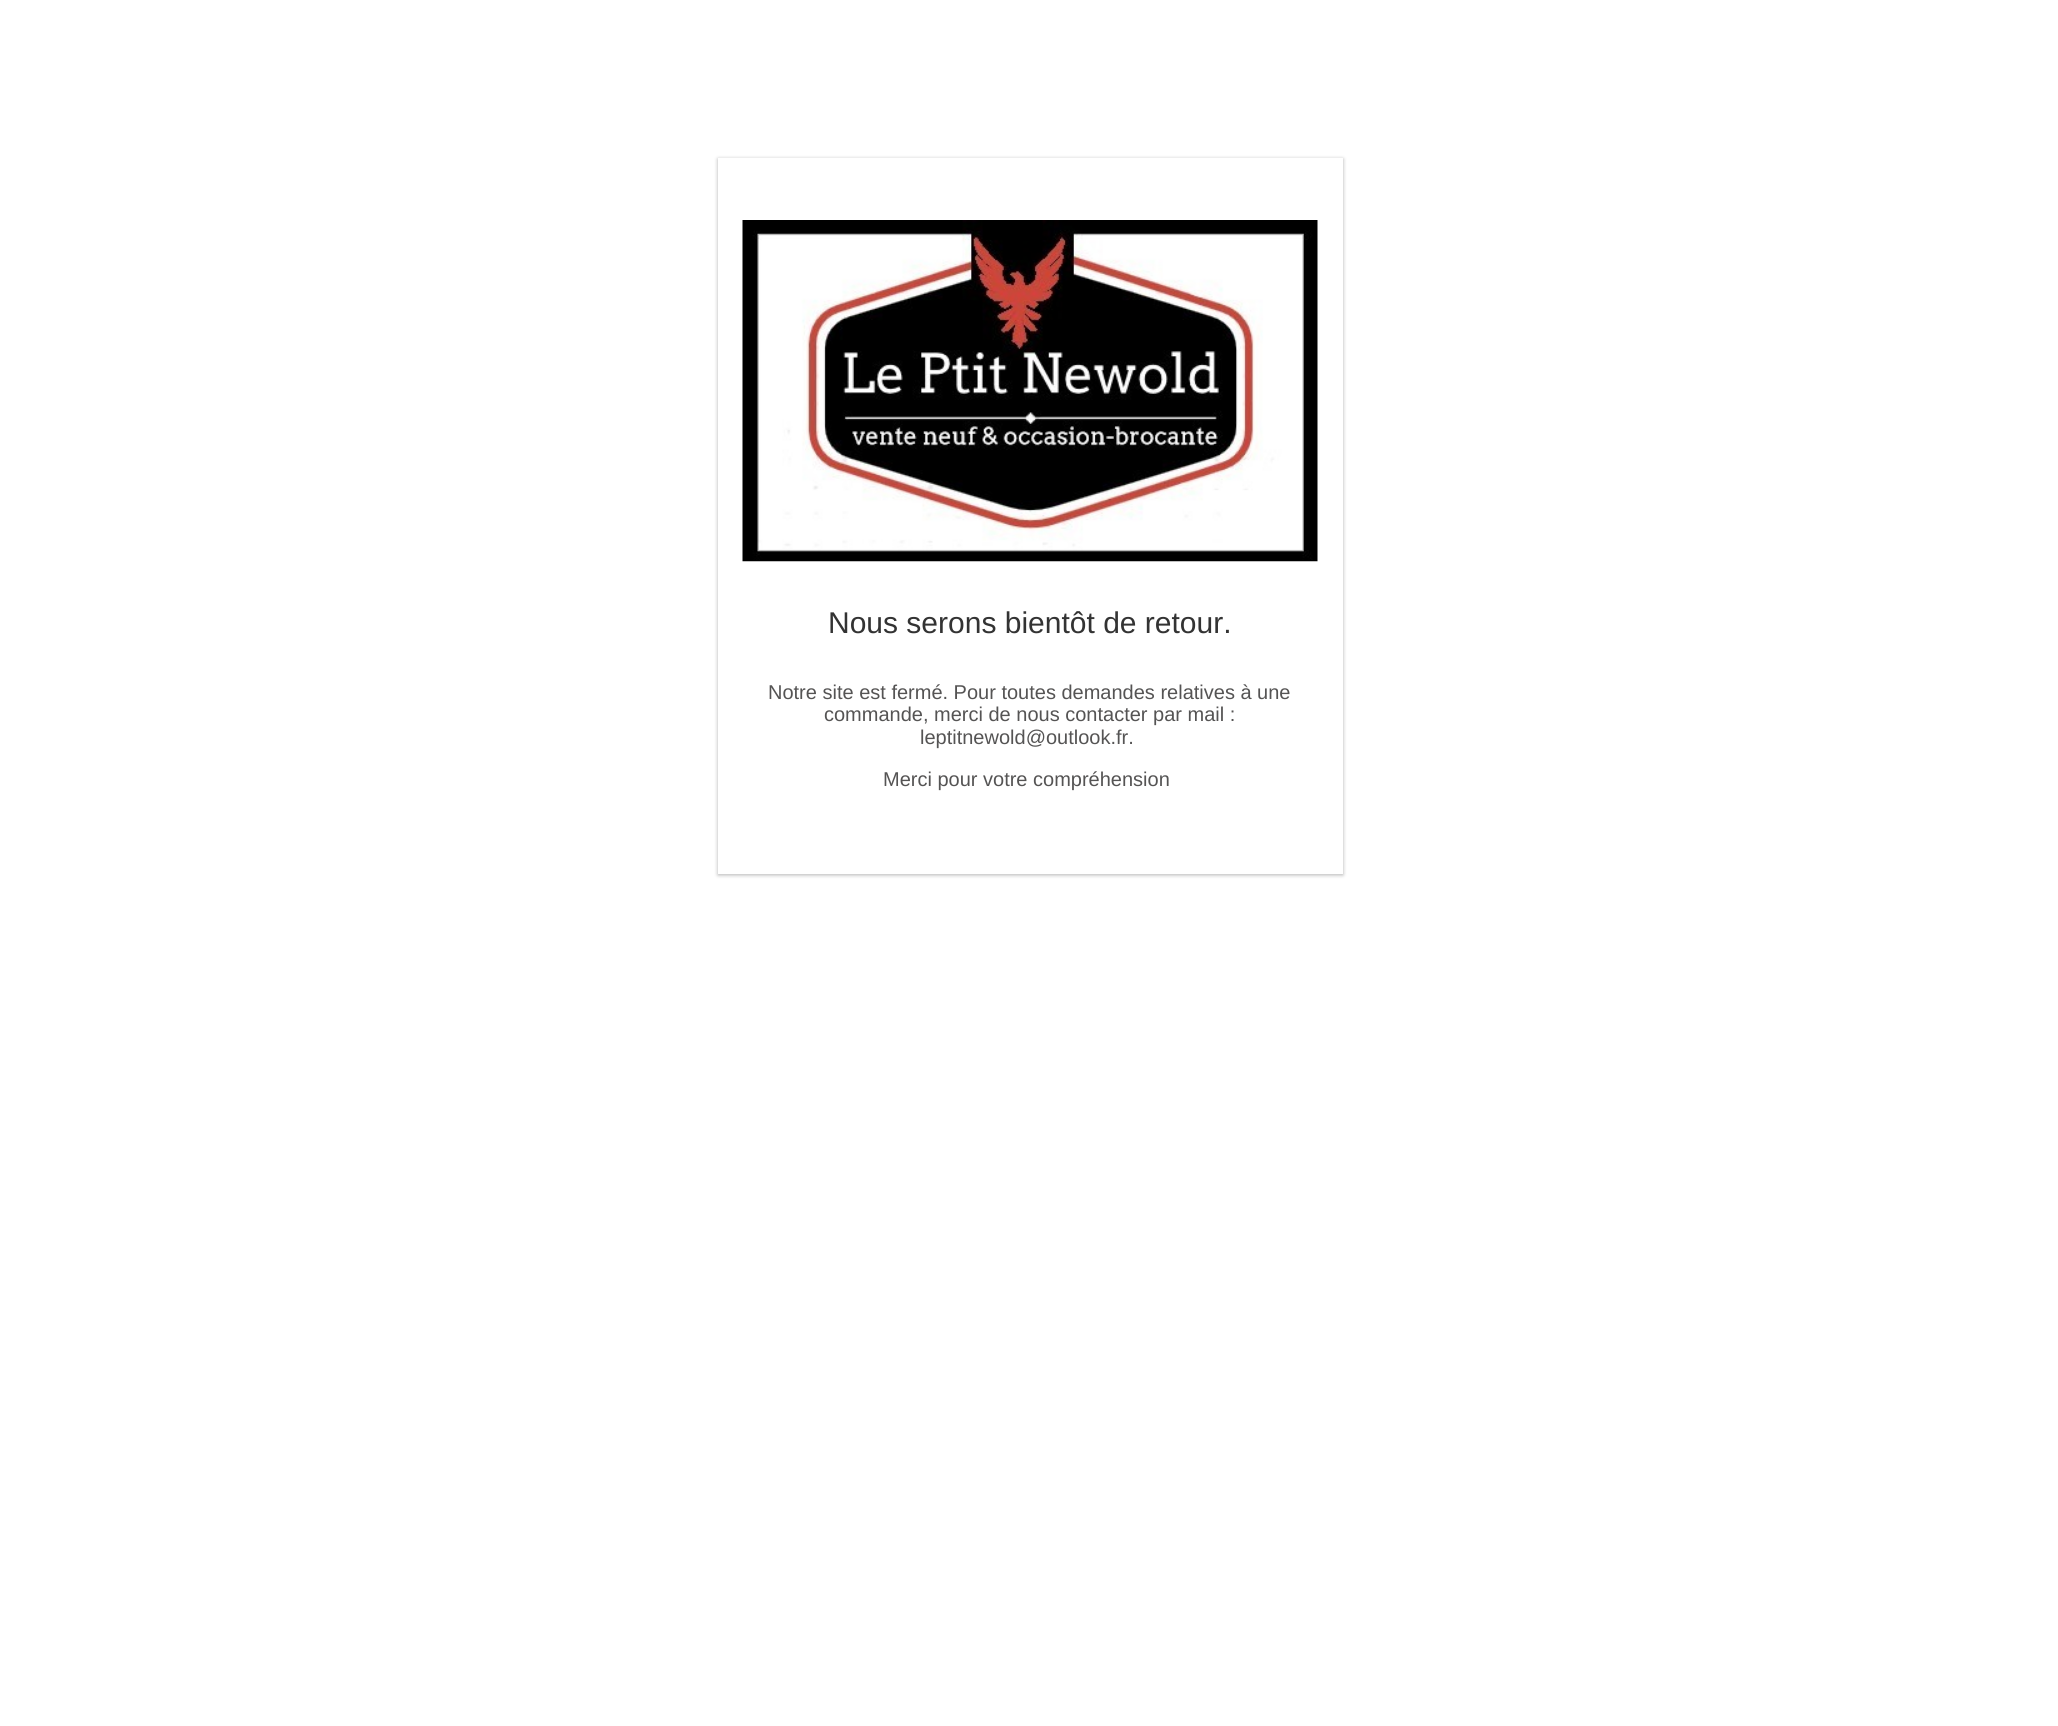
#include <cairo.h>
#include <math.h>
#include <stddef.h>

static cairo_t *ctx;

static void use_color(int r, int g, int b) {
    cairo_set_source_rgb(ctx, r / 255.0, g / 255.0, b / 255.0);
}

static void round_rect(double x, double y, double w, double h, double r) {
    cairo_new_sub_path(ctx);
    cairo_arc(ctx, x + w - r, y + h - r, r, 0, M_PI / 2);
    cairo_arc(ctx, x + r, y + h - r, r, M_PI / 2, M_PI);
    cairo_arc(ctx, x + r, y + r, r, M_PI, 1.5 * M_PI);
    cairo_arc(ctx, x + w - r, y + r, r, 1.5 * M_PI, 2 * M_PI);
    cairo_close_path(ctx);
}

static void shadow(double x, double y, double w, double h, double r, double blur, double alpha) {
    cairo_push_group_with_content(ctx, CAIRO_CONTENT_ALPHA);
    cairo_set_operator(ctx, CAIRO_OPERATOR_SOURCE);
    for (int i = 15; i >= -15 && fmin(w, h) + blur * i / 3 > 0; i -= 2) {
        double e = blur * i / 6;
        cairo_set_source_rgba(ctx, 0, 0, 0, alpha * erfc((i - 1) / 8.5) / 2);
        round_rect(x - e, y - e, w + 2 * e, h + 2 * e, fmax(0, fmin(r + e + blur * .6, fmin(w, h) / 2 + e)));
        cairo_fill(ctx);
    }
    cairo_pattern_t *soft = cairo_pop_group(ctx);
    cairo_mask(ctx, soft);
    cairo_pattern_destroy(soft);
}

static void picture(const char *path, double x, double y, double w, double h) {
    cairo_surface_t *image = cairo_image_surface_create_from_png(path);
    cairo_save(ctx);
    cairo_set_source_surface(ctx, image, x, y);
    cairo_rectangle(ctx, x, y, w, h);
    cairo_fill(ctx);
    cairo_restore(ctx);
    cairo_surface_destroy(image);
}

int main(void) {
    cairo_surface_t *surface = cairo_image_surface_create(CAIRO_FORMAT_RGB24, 2058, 1726);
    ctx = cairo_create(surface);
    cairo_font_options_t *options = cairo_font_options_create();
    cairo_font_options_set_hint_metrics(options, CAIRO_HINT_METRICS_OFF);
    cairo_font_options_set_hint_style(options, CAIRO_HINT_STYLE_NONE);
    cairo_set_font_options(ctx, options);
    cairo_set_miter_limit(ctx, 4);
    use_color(255, 255, 255);
    cairo_paint(ctx);
    use_color(0, 0, 0);
    shadow(718, 159, 625, 716, 0, 2, 0.3);
    use_color(255, 255, 255);
    cairo_rectangle(ctx, 718, 158, 625, 716);
    cairo_fill(ctx);
    picture("img1.png", 742, 220, 576, 342);
    cairo_select_font_face(ctx, "Liberation Sans", CAIRO_FONT_SLANT_NORMAL, CAIRO_FONT_WEIGHT_NORMAL);
    cairo_set_font_size(ctx, 30);
    use_color(51, 51, 51);
    cairo_move_to(ctx, 828, 633);
    cairo_show_text(ctx, "Nous serons bientôt de retour.");
    cairo_set_font_size(ctx, 20);
    use_color(85, 84, 84);
    cairo_move_to(ctx, 768, 699);
    cairo_show_text(ctx, "Notre site est fermé. Pour toutes demandes relatives à une");
    cairo_move_to(ctx, 824, 721);
    cairo_show_text(ctx, "commande, merci de nous contacter par mail :");
    cairo_move_to(ctx, 920, 744);
    cairo_show_text(ctx, "leptitnewold@outlook.fr.");
    cairo_move_to(ctx, 883, 786);
    cairo_show_text(ctx, "Merci pour votre compréhension");
    cairo_surface_write_to_png(surface, "result.png");
    cairo_font_options_destroy(options);
    cairo_destroy(ctx);
    cairo_surface_destroy(surface);
    return 0;
}
